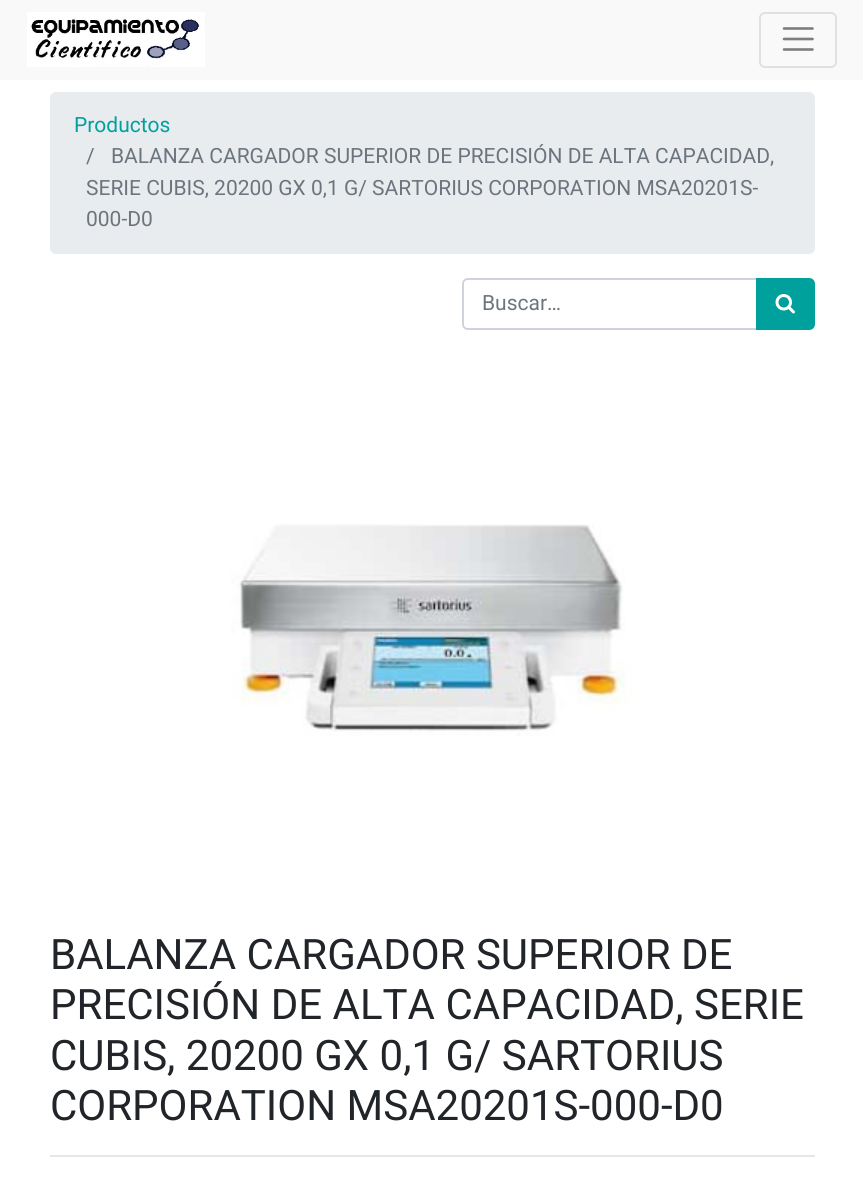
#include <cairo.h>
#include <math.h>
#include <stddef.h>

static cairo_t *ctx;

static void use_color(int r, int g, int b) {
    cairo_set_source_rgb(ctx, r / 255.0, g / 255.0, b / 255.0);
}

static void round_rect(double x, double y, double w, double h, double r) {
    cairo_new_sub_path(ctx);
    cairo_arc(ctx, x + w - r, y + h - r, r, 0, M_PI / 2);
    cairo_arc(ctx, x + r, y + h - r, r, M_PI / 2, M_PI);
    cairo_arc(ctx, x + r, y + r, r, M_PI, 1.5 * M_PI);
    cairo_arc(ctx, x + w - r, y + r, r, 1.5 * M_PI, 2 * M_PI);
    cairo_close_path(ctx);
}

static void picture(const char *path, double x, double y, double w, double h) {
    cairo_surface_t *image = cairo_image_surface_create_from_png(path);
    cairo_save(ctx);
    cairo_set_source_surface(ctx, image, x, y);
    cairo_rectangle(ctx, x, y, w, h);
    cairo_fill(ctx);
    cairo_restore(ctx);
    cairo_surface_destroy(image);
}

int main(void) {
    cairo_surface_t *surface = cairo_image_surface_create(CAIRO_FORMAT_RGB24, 863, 1190);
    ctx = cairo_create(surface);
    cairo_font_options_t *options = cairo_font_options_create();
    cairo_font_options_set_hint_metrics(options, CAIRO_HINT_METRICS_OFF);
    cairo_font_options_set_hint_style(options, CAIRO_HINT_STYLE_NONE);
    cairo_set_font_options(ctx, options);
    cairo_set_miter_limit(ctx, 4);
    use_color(255, 255, 255);
    cairo_paint(ctx);
    use_color(249, 249, 249);
    cairo_rectangle(ctx, 0, 0, 863, 80);
    cairo_fill(ctx);
    picture("img1.png", 27, 12, 178, 55);
    round_rect(760, 13, 76, 54, 5);
    use_color(224, 224, 224);
    cairo_stroke(ctx);
    cairo_new_path(ctx);
    cairo_move_to(ctx, 784, 28.5);
    cairo_line_to(ctx, 812.5, 28.5);
    cairo_move_to(ctx, 784, 39);
    cairo_line_to(ctx, 812.5, 39);
    cairo_move_to(ctx, 784, 49.5);
    cairo_line_to(ctx, 812.5, 49.5);
    use_color(125, 125, 125);
    cairo_set_line_width(ctx, 2.6);
    cairo_set_line_cap(ctx, CAIRO_LINE_CAP_ROUND);
    cairo_stroke(ctx);
    use_color(233, 236, 239);
    round_rect(50, 92, 765, 162, 6);
    cairo_fill(ctx);
    cairo_select_font_face(ctx, "Roboto", CAIRO_FONT_SLANT_NORMAL, CAIRO_FONT_WEIGHT_NORMAL);
    cairo_set_font_size(ctx, 21);
    use_color(0, 160, 157);
    cairo_move_to(ctx, 74, 132);
    cairo_show_text(ctx, "Productos");
    use_color(108, 117, 125);
    cairo_move_to(ctx, 86, 163);
    cairo_show_text(ctx, "/");
    cairo_move_to(ctx, 111, 163);
    cairo_show_text(ctx, "BALANZA CARGADOR SUPERIOR DE PRECISIÓN DE ALTA CAPACIDAD,");
    cairo_move_to(ctx, 86, 195);
    cairo_show_text(ctx, "SERIE CUBIS, 20200 GX 0,1 G/ SARTORIUS CORPORATION MSA20201S-");
    cairo_move_to(ctx, 86, 226);
    cairo_show_text(ctx, "000-D0");
    cairo_new_path(ctx);
    cairo_move_to(ctx, 468, 279);
    cairo_line_to(ctx, 757, 279);
    cairo_line_to(ctx, 757, 329);
    cairo_line_to(ctx, 468, 329);
    cairo_curve_to(ctx, 465, 329, 463, 327, 463, 324);
    cairo_line_to(ctx, 463, 284);
    cairo_curve_to(ctx, 463, 281, 465, 279, 468, 279);
    cairo_close_path(ctx);
    use_color(206, 212, 218);
    cairo_set_line_width(ctx, 2);
    cairo_set_line_cap(ctx, CAIRO_LINE_CAP_BUTT);
    cairo_stroke(ctx);
    use_color(108, 117, 125);
    cairo_move_to(ctx, 482, 310);
    cairo_show_text(ctx, "Buscar…");
    use_color(0, 160, 157);
    cairo_new_path(ctx);
    cairo_move_to(ctx, 757, 279);
    cairo_line_to(ctx, 809, 279);
    cairo_curve_to(ctx, 812, 279, 814, 281, 814, 284);
    cairo_line_to(ctx, 814, 324);
    cairo_curve_to(ctx, 814, 327, 812, 329, 809, 329);
    cairo_line_to(ctx, 757, 329);
    cairo_close_path(ctx);
    cairo_fill_preserve(ctx);
    cairo_stroke(ctx);
    picture("img2.png", 775, 294, 20, 20);
    picture("img3.png", 230, 524, 404, 212);
    cairo_set_font_size(ctx, 42);
    use_color(33, 37, 41);
    cairo_move_to(ctx, 50, 969);
    cairo_show_text(ctx, "BALANZA CARGADOR SUPERIOR DE");
    cairo_move_to(ctx, 50, 1019);
    cairo_show_text(ctx, "PRECISIÓN DE ALTA CAPACIDAD, SERIE");
    cairo_move_to(ctx, 50, 1070);
    cairo_show_text(ctx, "CUBIS, 20200 GX 0,1 G/ SARTORIUS");
    cairo_move_to(ctx, 50, 1120);
    cairo_show_text(ctx, "CORPORATION MSA20201S-000-D0");
    use_color(230, 230, 230);
    cairo_rectangle(ctx, 50, 1155, 765, 2);
    cairo_fill(ctx);
    cairo_surface_write_to_png(surface, "result.png");
    cairo_font_options_destroy(options);
    cairo_destroy(ctx);
    cairo_surface_destroy(surface);
    return 0;
}
